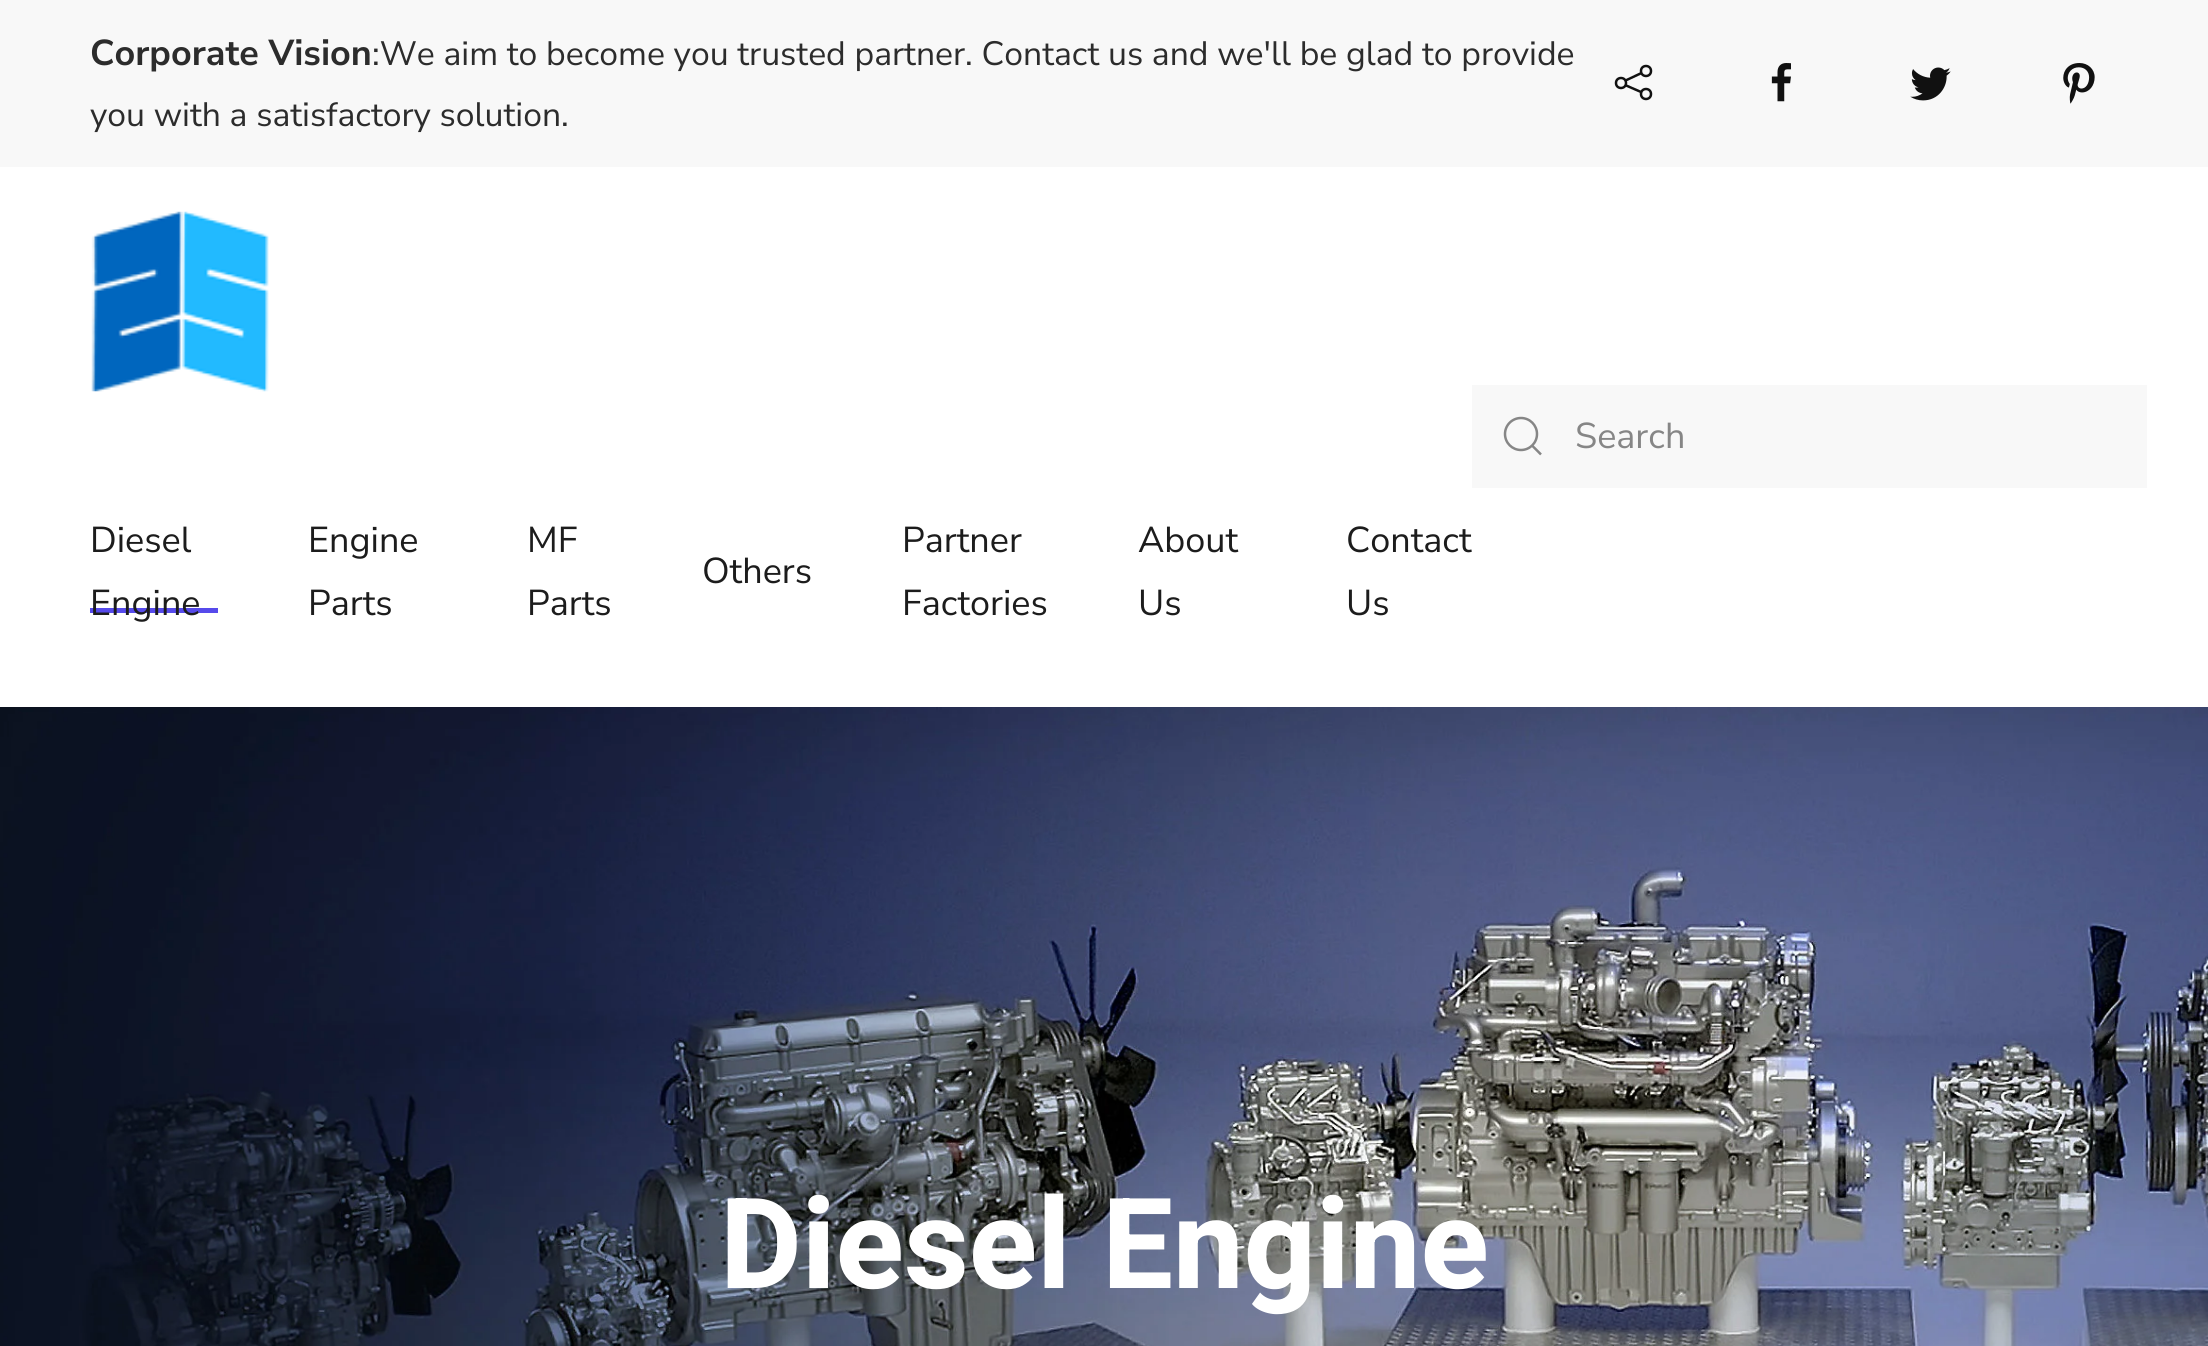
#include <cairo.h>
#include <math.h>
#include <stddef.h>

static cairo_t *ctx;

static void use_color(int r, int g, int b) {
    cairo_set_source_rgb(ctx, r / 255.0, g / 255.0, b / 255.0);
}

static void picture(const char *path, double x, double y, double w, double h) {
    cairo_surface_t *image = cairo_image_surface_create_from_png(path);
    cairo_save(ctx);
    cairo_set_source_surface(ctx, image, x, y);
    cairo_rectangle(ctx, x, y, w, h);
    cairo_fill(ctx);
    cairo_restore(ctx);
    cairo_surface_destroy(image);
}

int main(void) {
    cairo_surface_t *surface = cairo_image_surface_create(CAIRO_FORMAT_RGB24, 2208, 1346);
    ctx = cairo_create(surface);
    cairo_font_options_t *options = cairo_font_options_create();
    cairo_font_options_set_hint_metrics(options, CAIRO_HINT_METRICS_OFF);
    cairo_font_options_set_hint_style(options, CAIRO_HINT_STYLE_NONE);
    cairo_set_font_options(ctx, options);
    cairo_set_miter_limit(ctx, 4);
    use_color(255, 255, 255);
    cairo_paint(ctx);
    use_color(248, 248, 248);
    cairo_rectangle(ctx, 0, 0, 2208, 167);
    cairo_fill(ctx);
    cairo_select_font_face(ctx, "Nunito Sans ExtraLight", CAIRO_FONT_SLANT_NORMAL, CAIRO_FONT_WEIGHT_NORMAL);
    cairo_set_font_size(ctx, 36);
    use_color(44, 44, 44);
    cairo_move_to(ctx, 90, 65);
    cairo_show_text(ctx, "Corporate Vision");
    cairo_select_font_face(ctx, "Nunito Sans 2 ExtraLight", CAIRO_FONT_SLANT_NORMAL, CAIRO_FONT_WEIGHT_NORMAL);
    cairo_set_font_size(ctx, 33.75);
    cairo_move_to(ctx, 372, 65);
    cairo_show_text(ctx, ":We aim to become you trusted partner. Contact us and we'll be glad to provide");
    cairo_move_to(ctx, 90, 126);
    cairo_show_text(ctx, "you with a satisfactory solution.");
    cairo_new_path(ctx);
    cairo_move_to(ctx, 1641, 92);
    cairo_line_to(ctx, 1625, 85);
    cairo_move_to(ctx, 1641.5, 73);
    cairo_line_to(ctx, 1625.5, 80.5);
    use_color(17, 17, 17);
    cairo_set_line_width(ctx, 2.5);
    cairo_stroke(ctx);
    cairo_arc(ctx, 1621, 83, 5, 0, 2 * M_PI);
    cairo_stroke(ctx);
    cairo_arc(ctx, 1646, 71, 5, 0, 2 * M_PI);
    cairo_stroke(ctx);
    cairo_arc(ctx, 1646, 94, 5, 0, 2 * M_PI);
    cairo_stroke(ctx);
    picture("img1.png", 1771, 63, 20, 39);
    picture("img2.png", 1910, 67, 41, 34);
    picture("img3.png", 2063, 63, 32, 41);
    use_color(248, 248, 248);
    cairo_rectangle(ctx, 1472, 385, 675, 103);
    cairo_fill(ctx);
    cairo_arc(ctx, 1521, 434, 16, 0, 2 * M_PI);
    use_color(134, 134, 134);
    cairo_stroke(ctx);
    cairo_new_path(ctx);
    cairo_move_to(ctx, 1532, 445.5);
    cairo_line_to(ctx, 1541, 454.5);
    cairo_close_path(ctx);
    cairo_stroke(ctx);
    cairo_set_font_size(ctx, 36);
    cairo_move_to(ctx, 1575, 448);
    cairo_show_text(ctx, "Search");
    picture("img4.png", 91, 211, 178, 181);
    use_color(28, 28, 28);
    cairo_move_to(ctx, 90, 552);
    cairo_show_text(ctx, "Diesel");
    use_color(86, 74, 235);
    cairo_rectangle(ctx, 90, 608, 128, 5);
    cairo_fill(ctx);
    use_color(28, 28, 28);
    cairo_move_to(ctx, 90, 615);
    cairo_show_text(ctx, "Engine");
    cairo_move_to(ctx, 308, 552);
    cairo_show_text(ctx, "Engine");
    cairo_move_to(ctx, 308, 615);
    cairo_show_text(ctx, "Parts");
    cairo_move_to(ctx, 527, 552);
    cairo_show_text(ctx, "MF");
    cairo_move_to(ctx, 527, 615);
    cairo_show_text(ctx, "Parts");
    cairo_move_to(ctx, 702, 583);
    cairo_show_text(ctx, "Others");
    cairo_move_to(ctx, 902, 552);
    cairo_show_text(ctx, "Partner");
    cairo_move_to(ctx, 902, 615);
    cairo_show_text(ctx, "Factories");
    cairo_move_to(ctx, 1138, 552);
    cairo_show_text(ctx, "About");
    cairo_move_to(ctx, 1138, 615);
    cairo_show_text(ctx, "Us");
    cairo_move_to(ctx, 1346, 552);
    cairo_show_text(ctx, "Contact");
    cairo_move_to(ctx, 1346, 615);
    cairo_show_text(ctx, "Us");
    picture("img5.png", 0, 707, 2208, 639);
    cairo_select_font_face(ctx, "Heebo", CAIRO_FONT_SLANT_NORMAL, CAIRO_FONT_WEIGHT_BOLD);
    cairo_set_font_size(ctx, 126);
    use_color(255, 255, 255);
    cairo_move_to(ctx, 720, 1288);
    cairo_show_text(ctx, "Diesel Engine");
    cairo_surface_write_to_png(surface, "result.png");
    cairo_font_options_destroy(options);
    cairo_destroy(ctx);
    cairo_surface_destroy(surface);
    return 0;
}
